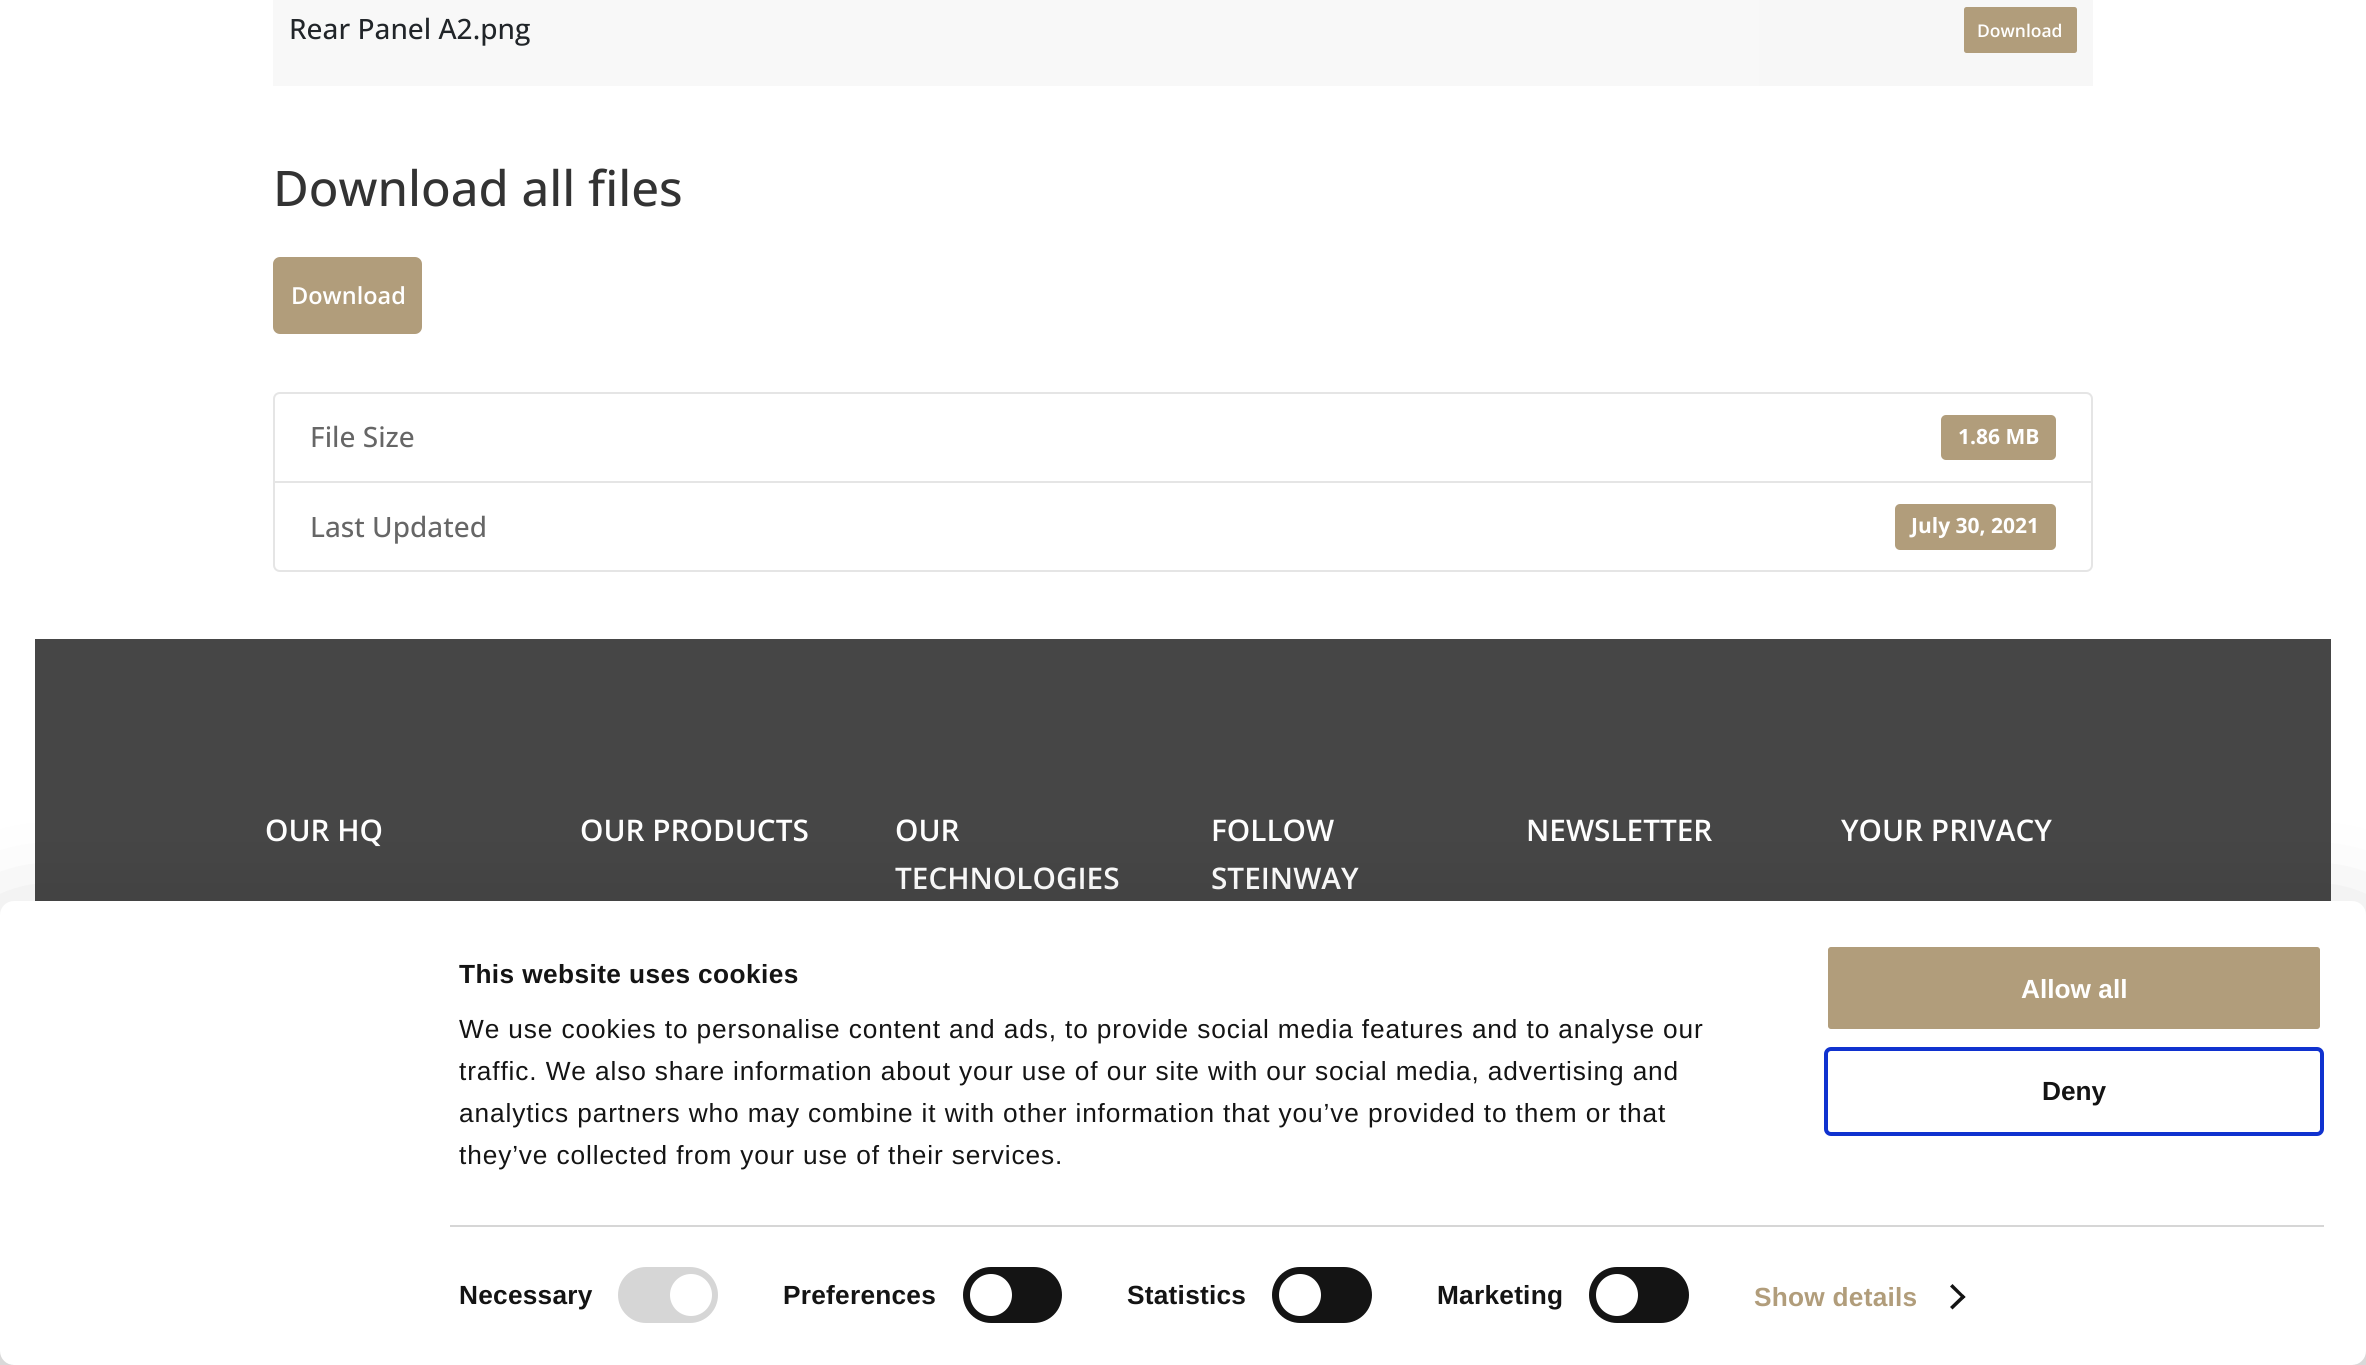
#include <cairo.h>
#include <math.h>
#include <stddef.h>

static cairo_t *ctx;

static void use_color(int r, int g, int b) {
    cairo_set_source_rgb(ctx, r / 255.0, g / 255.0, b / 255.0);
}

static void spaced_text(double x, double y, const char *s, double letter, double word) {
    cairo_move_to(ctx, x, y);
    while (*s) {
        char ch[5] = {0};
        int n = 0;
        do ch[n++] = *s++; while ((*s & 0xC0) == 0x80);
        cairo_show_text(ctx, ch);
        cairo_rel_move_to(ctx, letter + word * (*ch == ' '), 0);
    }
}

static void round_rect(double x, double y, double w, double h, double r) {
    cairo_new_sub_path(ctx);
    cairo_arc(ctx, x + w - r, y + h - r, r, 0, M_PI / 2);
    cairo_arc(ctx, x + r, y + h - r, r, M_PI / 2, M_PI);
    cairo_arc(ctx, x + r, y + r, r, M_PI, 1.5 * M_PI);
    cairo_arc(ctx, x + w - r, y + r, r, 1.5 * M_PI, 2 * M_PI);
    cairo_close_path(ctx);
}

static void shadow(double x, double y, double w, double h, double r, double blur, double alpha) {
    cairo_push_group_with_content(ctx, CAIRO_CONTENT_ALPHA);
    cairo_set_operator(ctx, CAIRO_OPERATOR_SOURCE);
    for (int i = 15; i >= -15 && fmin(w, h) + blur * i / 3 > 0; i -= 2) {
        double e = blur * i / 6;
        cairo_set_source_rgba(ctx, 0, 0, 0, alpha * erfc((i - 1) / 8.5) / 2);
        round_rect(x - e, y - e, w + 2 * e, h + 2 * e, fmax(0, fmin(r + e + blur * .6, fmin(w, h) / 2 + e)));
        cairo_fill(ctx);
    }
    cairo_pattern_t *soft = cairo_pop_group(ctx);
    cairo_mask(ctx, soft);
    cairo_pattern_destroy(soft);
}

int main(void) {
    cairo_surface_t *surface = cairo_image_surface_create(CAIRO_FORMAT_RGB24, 2366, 1365);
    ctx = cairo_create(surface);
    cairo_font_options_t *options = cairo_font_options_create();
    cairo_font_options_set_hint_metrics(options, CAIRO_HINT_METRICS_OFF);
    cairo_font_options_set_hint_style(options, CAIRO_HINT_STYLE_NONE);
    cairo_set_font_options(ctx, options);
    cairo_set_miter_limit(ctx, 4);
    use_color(255, 255, 255);
    cairo_paint(ctx);
    use_color(248, 248, 248);
    cairo_rectangle(ctx, 273, 0, 1486, 86);
    cairo_fill(ctx);
    cairo_select_font_face(ctx, "Open Sans Medium", CAIRO_FONT_SLANT_NORMAL, CAIRO_FONT_WEIGHT_NORMAL);
    cairo_set_font_size(ctx, 28);
    use_color(33, 37, 41);
    cairo_move_to(ctx, 289, 39);
    cairo_show_text(ctx, "Rear Panel A2.png");
    use_color(247, 247, 247);
    cairo_rectangle(ctx, 1759, 0, 334, 86);
    cairo_fill(ctx);
    use_color(177, 157, 123);
    round_rect(1964, 7, 113, 46, 2.5);
    cairo_fill(ctx);
    cairo_select_font_face(ctx, "Open Sans SemiBold", CAIRO_FONT_SLANT_NORMAL, CAIRO_FONT_WEIGHT_NORMAL);
    cairo_set_font_size(ctx, 17.5);
    use_color(255, 255, 255);
    cairo_move_to(ctx, 1977, 37);
    cairo_show_text(ctx, "Download");
    cairo_select_font_face(ctx, "Open Sans Medium", CAIRO_FONT_SLANT_NORMAL, CAIRO_FONT_WEIGHT_NORMAL);
    cairo_set_font_size(ctx, 49);
    use_color(51, 51, 51);
    cairo_move_to(ctx, 273, 206);
    cairo_show_text(ctx, "Download all files");
    use_color(177, 157, 123);
    round_rect(273, 257, 149, 77, 7);
    cairo_fill(ctx);
    cairo_select_font_face(ctx, "Open Sans SemiBold", CAIRO_FONT_SLANT_NORMAL, CAIRO_FONT_WEIGHT_NORMAL);
    cairo_set_font_size(ctx, 23.5);
    use_color(255, 255, 255);
    cairo_move_to(ctx, 291, 304);
    cairo_show_text(ctx, "Download");
    cairo_new_path(ctx);
    cairo_move_to(ctx, 280, 393);
    cairo_line_to(ctx, 2086, 393);
    cairo_curve_to(ctx, 2089.5, 393, 2092, 395.5, 2092, 399);
    cairo_line_to(ctx, 2092, 482);
    cairo_line_to(ctx, 274, 482);
    cairo_line_to(ctx, 274, 399);
    cairo_curve_to(ctx, 274, 395.5, 276.5, 393, 280, 393);
    cairo_close_path(ctx);
    use_color(229, 229, 229);
    cairo_stroke(ctx);
    cairo_select_font_face(ctx, "Open Sans Medium", CAIRO_FONT_SLANT_NORMAL, CAIRO_FONT_WEIGHT_NORMAL);
    cairo_set_font_size(ctx, 28);
    use_color(102, 102, 102);
    cairo_move_to(ctx, 310, 447);
    cairo_show_text(ctx, "File Size");
    use_color(177, 157, 123);
    round_rect(1941, 415, 115, 45, 5);
    cairo_fill(ctx);
    cairo_select_font_face(ctx, "Open Sans", CAIRO_FONT_SLANT_NORMAL, CAIRO_FONT_WEIGHT_BOLD);
    cairo_set_font_size(ctx, 21);
    use_color(255, 255, 255);
    cairo_move_to(ctx, 1958, 444);
    cairo_show_text(ctx, "1.86 MB");
    cairo_new_path(ctx);
    cairo_move_to(ctx, 274, 482);
    cairo_line_to(ctx, 2092, 482);
    cairo_line_to(ctx, 2092, 565);
    cairo_curve_to(ctx, 2092, 568.5, 2089.5, 571, 2086, 571);
    cairo_line_to(ctx, 280, 571);
    cairo_curve_to(ctx, 276.5, 571, 274, 568.5, 274, 565);
    cairo_close_path(ctx);
    cairo_fill_preserve(ctx);
    use_color(229, 229, 229);
    cairo_stroke(ctx);
    cairo_select_font_face(ctx, "Open Sans Medium", CAIRO_FONT_SLANT_NORMAL, CAIRO_FONT_WEIGHT_NORMAL);
    cairo_set_font_size(ctx, 28);
    use_color(102, 102, 102);
    cairo_move_to(ctx, 310, 537);
    cairo_show_text(ctx, "Last Updated");
    use_color(177, 157, 123);
    round_rect(1895, 504, 161, 46, 5);
    cairo_fill(ctx);
    cairo_select_font_face(ctx, "Open Sans", CAIRO_FONT_SLANT_NORMAL, CAIRO_FONT_WEIGHT_BOLD);
    cairo_set_font_size(ctx, 21);
    use_color(255, 255, 255);
    cairo_move_to(ctx, 1911, 533);
    cairo_show_text(ctx, "July 30, 2021");
    use_color(70, 70, 70);
    cairo_rectangle(ctx, 35, 639, 2296, 262);
    cairo_fill(ctx);
    cairo_select_font_face(ctx, "Open Sans SemiBold", CAIRO_FONT_SLANT_NORMAL, CAIRO_FONT_WEIGHT_NORMAL);
    cairo_set_font_size(ctx, 29.75);
    use_color(255, 255, 255);
    cairo_move_to(ctx, 265, 841);
    cairo_show_text(ctx, "OUR HQ");
    cairo_move_to(ctx, 580, 841);
    cairo_show_text(ctx, "OUR PRODUCTS");
    cairo_move_to(ctx, 895, 841);
    cairo_show_text(ctx, "OUR");
    cairo_move_to(ctx, 895, 889);
    cairo_show_text(ctx, "TECHNOLOGIES");
    cairo_move_to(ctx, 1211, 841);
    cairo_show_text(ctx, "FOLLOW");
    cairo_move_to(ctx, 1211, 889);
    cairo_show_text(ctx, "STEINWAY");
    cairo_move_to(ctx, 1526, 841);
    cairo_show_text(ctx, "NEWSLETTER");
    cairo_move_to(ctx, 1841, 841);
    cairo_show_text(ctx, "YOUR PRIVACY");
    use_color(0, 0, 0);
    shadow(0, 954, 2366, 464, 14, 61, 0.3);
    use_color(255, 255, 255);
    round_rect(0, 901, 2366, 464, 14);
    cairo_fill(ctx);
    cairo_select_font_face(ctx, "Liberation Sans", CAIRO_FONT_SLANT_NORMAL, CAIRO_FONT_WEIGHT_BOLD);
    cairo_set_font_size(ctx, 26.25);
    use_color(20, 20, 20);
    spaced_text(459, 983, "This website uses cookies", 0.4, 0);
    cairo_select_font_face(ctx, "Liberation Sans", CAIRO_FONT_SLANT_NORMAL, CAIRO_FONT_WEIGHT_NORMAL);
    spaced_text(459, 1038, "We use cookies to personalise content and ads, to provide social media features and to analyse our", 0.88, 0);
    spaced_text(459, 1080, "traffic. We also share information about your use of our site with our social media, advertising and", 0.88, 0);
    spaced_text(459, 1122, "analytics partners who may combine it with other information that you’ve provided to them or that", 0.88, 0);
    spaced_text(459, 1164, "they’ve collected from your use of their services.", 0.88, 0);
    use_color(214, 214, 214);
    cairo_rectangle(ctx, 450, 1225, 1874, 2);
    cairo_fill(ctx);
    cairo_select_font_face(ctx, "Liberation Sans", CAIRO_FONT_SLANT_NORMAL, CAIRO_FONT_WEIGHT_BOLD);
    use_color(20, 20, 20);
    spaced_text(459, 1304, "Necessary", 0.25, 0);
    use_color(214, 214, 214);
    round_rect(618, 1267, 100, 56, 28);
    cairo_fill(ctx);
    use_color(255, 255, 255);
    cairo_arc(ctx, 691, 1295, 21, 0, 2 * M_PI);
    cairo_fill(ctx);
    use_color(20, 20, 20);
    spaced_text(783, 1304, "Preferences", 0.25, 0);
    round_rect(963, 1267, 99, 56, 28);
    cairo_fill(ctx);
    use_color(255, 255, 255);
    cairo_arc(ctx, 991, 1295, 21, 0, 2 * M_PI);
    cairo_fill(ctx);
    use_color(20, 20, 20);
    spaced_text(1127, 1304, "Statistics", 0.25, 0);
    round_rect(1272, 1267, 100, 56, 28);
    cairo_fill(ctx);
    use_color(255, 255, 255);
    cairo_arc(ctx, 1300, 1295, 21, 0, 2 * M_PI);
    cairo_fill(ctx);
    use_color(20, 20, 20);
    spaced_text(1437, 1304, "Marketing", 0.25, 0);
    round_rect(1589, 1267, 100, 56, 28);
    cairo_fill(ctx);
    use_color(255, 255, 255);
    cairo_arc(ctx, 1617, 1295, 21, 0, 2 * M_PI);
    cairo_fill(ctx);
    use_color(177, 157, 123);
    spaced_text(1754, 1306, "Show details", 0.25, 0);
    use_color(20, 20, 20);
    cairo_new_path(ctx);
    cairo_move_to(ctx, 1952.5, 1284);
    cairo_line_to(ctx, 1965.5, 1297);
    cairo_line_to(ctx, 1963, 1299);
    cairo_line_to(ctx, 1950, 1286.5);
    cairo_close_path(ctx);
    cairo_fill(ctx);
    cairo_new_path(ctx);
    cairo_move_to(ctx, 1963, 1294.5);
    cairo_line_to(ctx, 1965.5, 1297);
    cairo_line_to(ctx, 1952.5, 1309.5);
    cairo_line_to(ctx, 1950, 1307);
    cairo_close_path(ctx);
    cairo_fill(ctx);
    use_color(177, 157, 123);
    round_rect(1826, 945, 496, 86, 5);
    cairo_fill_preserve(ctx);
    use_color(255, 255, 255);
    cairo_set_line_width(ctx, 4);
    cairo_stroke(ctx);
    cairo_move_to(ctx, 2021, 998);
    cairo_show_text(ctx, "Allow all");
    round_rect(1826, 1049, 496, 85, 5);
    use_color(16, 50, 207);
    cairo_stroke(ctx);
    use_color(20, 20, 20);
    cairo_move_to(ctx, 2042, 1100);
    cairo_show_text(ctx, "Deny");
    cairo_surface_write_to_png(surface, "result.png");
    cairo_font_options_destroy(options);
    cairo_destroy(ctx);
    cairo_surface_destroy(surface);
    return 0;
}
